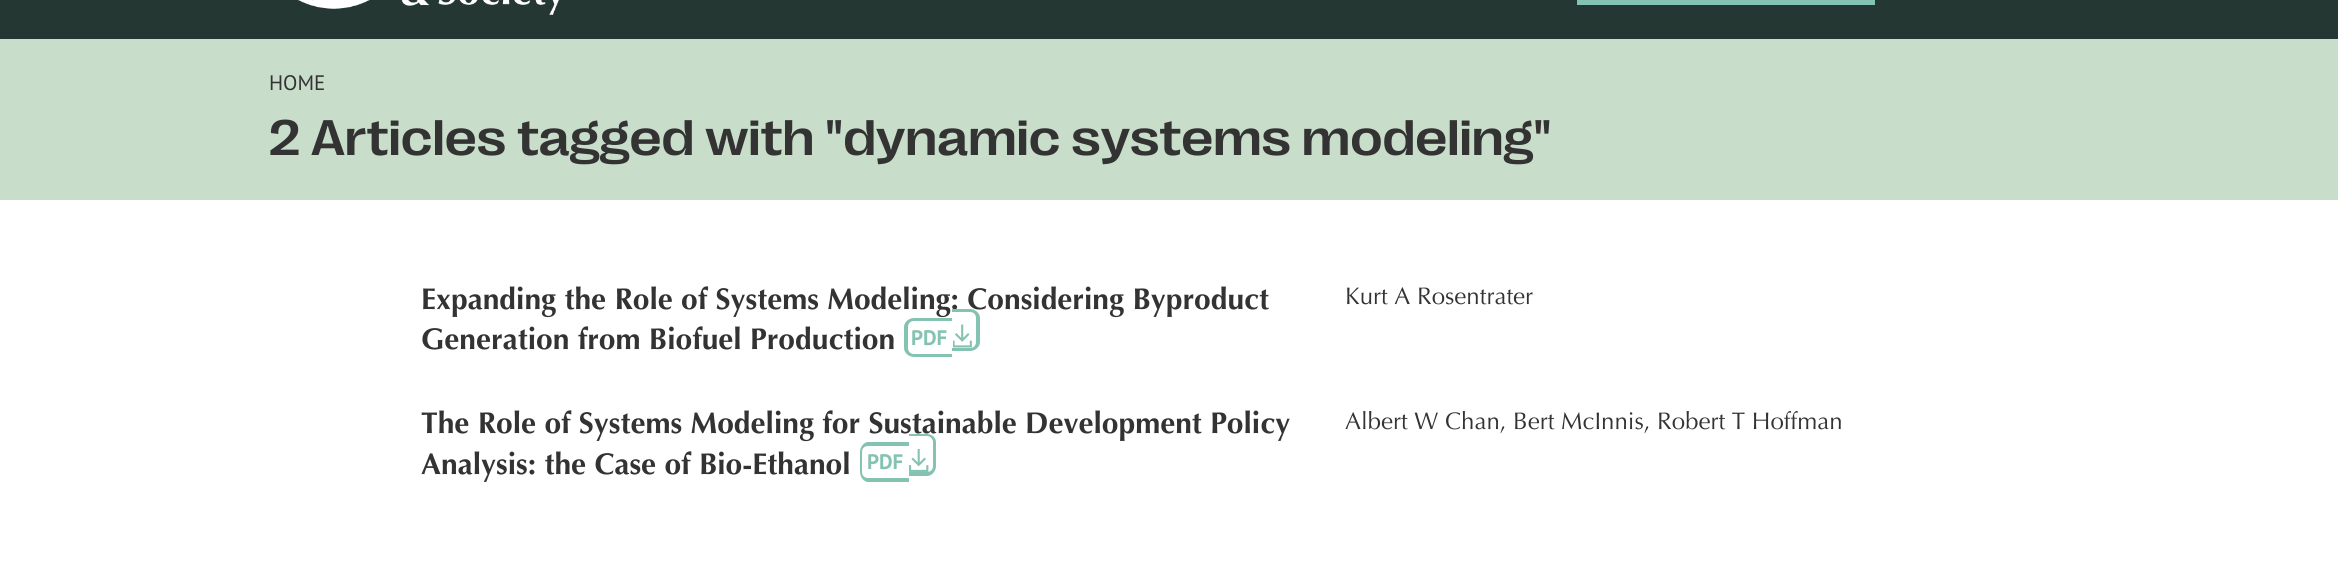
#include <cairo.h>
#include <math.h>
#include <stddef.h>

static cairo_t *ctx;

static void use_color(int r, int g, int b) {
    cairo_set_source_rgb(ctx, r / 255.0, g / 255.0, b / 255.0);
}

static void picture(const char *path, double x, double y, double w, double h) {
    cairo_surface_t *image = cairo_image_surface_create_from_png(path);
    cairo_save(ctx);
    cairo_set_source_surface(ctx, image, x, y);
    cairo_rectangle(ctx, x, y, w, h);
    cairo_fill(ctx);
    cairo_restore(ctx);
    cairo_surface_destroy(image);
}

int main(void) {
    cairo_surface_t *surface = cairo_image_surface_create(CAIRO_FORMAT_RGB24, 2338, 584);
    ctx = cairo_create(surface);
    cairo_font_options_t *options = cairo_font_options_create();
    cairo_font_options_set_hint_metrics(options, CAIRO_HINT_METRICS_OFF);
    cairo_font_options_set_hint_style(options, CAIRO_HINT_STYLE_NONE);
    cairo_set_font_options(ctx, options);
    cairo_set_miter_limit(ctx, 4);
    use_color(255, 255, 255);
    cairo_paint(ctx);
    use_color(37, 55, 51);
    cairo_rectangle(ctx, 0, 0, 2338, 39);
    cairo_fill(ctx);
    picture("img1.png", 298, 0, 261, 15);
    cairo_rectangle(ctx, 1579.5, -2.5, 293, 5);
    use_color(132, 194, 178);
    cairo_set_line_width(ctx, 5);
    cairo_stroke(ctx);
    use_color(201, 222, 202);
    cairo_rectangle(ctx, 0, 39, 2338, 161);
    cairo_fill(ctx);
    cairo_select_font_face(ctx, "PT Sans", CAIRO_FONT_SLANT_NORMAL, CAIRO_FONT_WEIGHT_NORMAL);
    cairo_set_font_size(ctx, 21);
    use_color(51, 51, 51);
    cairo_move_to(ctx, 269, 90);
    cairo_show_text(ctx, "HOME");
    cairo_select_font_face(ctx, "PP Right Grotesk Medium", CAIRO_FONT_SLANT_NORMAL, CAIRO_FONT_WEIGHT_NORMAL);
    cairo_set_font_size(ctx, 51);
    cairo_move_to(ctx, 269, 155);
    cairo_show_text(ctx, "2 Articles tagged with \"dynamic systems modeling\"");
    cairo_select_font_face(ctx, "Optima", CAIRO_FONT_SLANT_NORMAL, CAIRO_FONT_WEIGHT_BOLD);
    cairo_set_font_size(ctx, 30);
    cairo_move_to(ctx, 421, 309);
    cairo_show_text(ctx, "Expanding the Role of Systems Modeling: Considering Byproduct");
    cairo_move_to(ctx, 421, 349);
    cairo_show_text(ctx, "Generation from Biofuel Production");
    use_color(132, 194, 178);
    cairo_set_fill_rule(ctx, CAIRO_FILL_RULE_EVEN_ODD);
    cairo_new_path(ctx);
    cairo_move_to(ctx, 914, 318);
    cairo_line_to(ctx, 952, 318);
    cairo_line_to(ctx, 952, 357);
    cairo_line_to(ctx, 914, 357);
    cairo_curve_to(ctx, 909, 357, 904, 353, 904, 348);
    cairo_line_to(ctx, 904, 327);
    cairo_curve_to(ctx, 904, 322, 909, 318, 914, 318);
    cairo_close_path(ctx);
    cairo_move_to(ctx, 914, 321);
    cairo_line_to(ctx, 952, 321);
    cairo_line_to(ctx, 952, 354);
    cairo_line_to(ctx, 914, 354);
    cairo_curve_to(ctx, 910, 354, 908, 351, 908, 348);
    cairo_line_to(ctx, 908, 327);
    cairo_curve_to(ctx, 908, 324, 910, 321, 914, 321);
    cairo_close_path(ctx);
    cairo_fill(ctx);
    cairo_select_font_face(ctx, "PT Sans", CAIRO_FONT_SLANT_NORMAL, CAIRO_FONT_WEIGHT_BOLD);
    cairo_set_font_size(ctx, 21);
    cairo_move_to(ctx, 911, 345);
    cairo_show_text(ctx, "PDF");
    cairo_new_path(ctx);
    cairo_move_to(ctx, 952, 309);
    cairo_line_to(ctx, 970, 309);
    cairo_curve_to(ctx, 975, 309, 980, 313, 980, 318);
    cairo_line_to(ctx, 980, 342);
    cairo_curve_to(ctx, 980, 347, 975, 351, 970, 351);
    cairo_line_to(ctx, 952, 351);
    cairo_close_path(ctx);
    cairo_move_to(ctx, 952, 312);
    cairo_line_to(ctx, 970, 312);
    cairo_curve_to(ctx, 974, 312, 976, 315, 976, 318);
    cairo_line_to(ctx, 976, 342);
    cairo_curve_to(ctx, 976, 345, 974, 348, 970, 348);
    cairo_line_to(ctx, 952, 348);
    cairo_close_path(ctx);
    cairo_fill(ctx);
    picture("img2.png", 953, 324, 19, 24);
    cairo_select_font_face(ctx, "Optima", CAIRO_FONT_SLANT_NORMAL, CAIRO_FONT_WEIGHT_NORMAL);
    cairo_set_font_size(ctx, 24);
    use_color(51, 51, 51);
    cairo_move_to(ctx, 1345, 304);
    cairo_show_text(ctx, "Kurt A Rosentrater");
    cairo_select_font_face(ctx, "Optima", CAIRO_FONT_SLANT_NORMAL, CAIRO_FONT_WEIGHT_BOLD);
    cairo_set_font_size(ctx, 30);
    cairo_move_to(ctx, 421, 433);
    cairo_show_text(ctx, "The Role of Systems Modeling for Sustainable Development Policy");
    cairo_move_to(ctx, 421, 474);
    cairo_show_text(ctx, "Analysis: the Case of Bio-Ethanol");
    use_color(132, 194, 178);
    cairo_new_path(ctx);
    cairo_move_to(ctx, 868, 442);
    cairo_line_to(ctx, 909, 442);
    cairo_line_to(ctx, 909, 482);
    cairo_line_to(ctx, 868, 482);
    cairo_curve_to(ctx, 864, 482, 860, 477, 860, 472);
    cairo_line_to(ctx, 860, 452);
    cairo_curve_to(ctx, 860, 447, 864, 442, 868, 442);
    cairo_close_path(ctx);
    cairo_move_to(ctx, 868, 446);
    cairo_line_to(ctx, 909, 446);
    cairo_line_to(ctx, 909, 478);
    cairo_line_to(ctx, 868, 478);
    cairo_curve_to(ctx, 865, 478, 862, 476, 862, 472);
    cairo_line_to(ctx, 862, 452);
    cairo_curve_to(ctx, 862, 448, 865, 446, 868, 446);
    cairo_close_path(ctx);
    cairo_fill(ctx);
    cairo_select_font_face(ctx, "PT Sans", CAIRO_FONT_SLANT_NORMAL, CAIRO_FONT_WEIGHT_BOLD);
    cairo_set_font_size(ctx, 21);
    cairo_move_to(ctx, 867, 469);
    cairo_show_text(ctx, "PDF");
    cairo_new_path(ctx);
    cairo_move_to(ctx, 909, 434);
    cairo_line_to(ctx, 927, 434);
    cairo_curve_to(ctx, 932, 434, 936, 438, 936, 442);
    cairo_line_to(ctx, 936, 466);
    cairo_curve_to(ctx, 936, 471, 932, 476, 927, 476);
    cairo_line_to(ctx, 909, 476);
    cairo_close_path(ctx);
    cairo_move_to(ctx, 909, 436);
    cairo_line_to(ctx, 927, 436);
    cairo_curve_to(ctx, 930, 436, 933, 439, 933, 442);
    cairo_line_to(ctx, 933, 466);
    cairo_curve_to(ctx, 933, 470, 930, 472, 927, 472);
    cairo_line_to(ctx, 909, 472);
    cairo_close_path(ctx);
    cairo_fill(ctx);
    picture("img3.png", 909, 449, 20, 23);
    cairo_select_font_face(ctx, "Optima", CAIRO_FONT_SLANT_NORMAL, CAIRO_FONT_WEIGHT_NORMAL);
    cairo_set_font_size(ctx, 24);
    use_color(51, 51, 51);
    cairo_move_to(ctx, 1345, 429);
    cairo_show_text(ctx, "Albert W Chan, Bert McInnis, Robert T Hoffman");
    cairo_surface_write_to_png(surface, "result.png");
    cairo_font_options_destroy(options);
    cairo_destroy(ctx);
    cairo_surface_destroy(surface);
    return 0;
}
